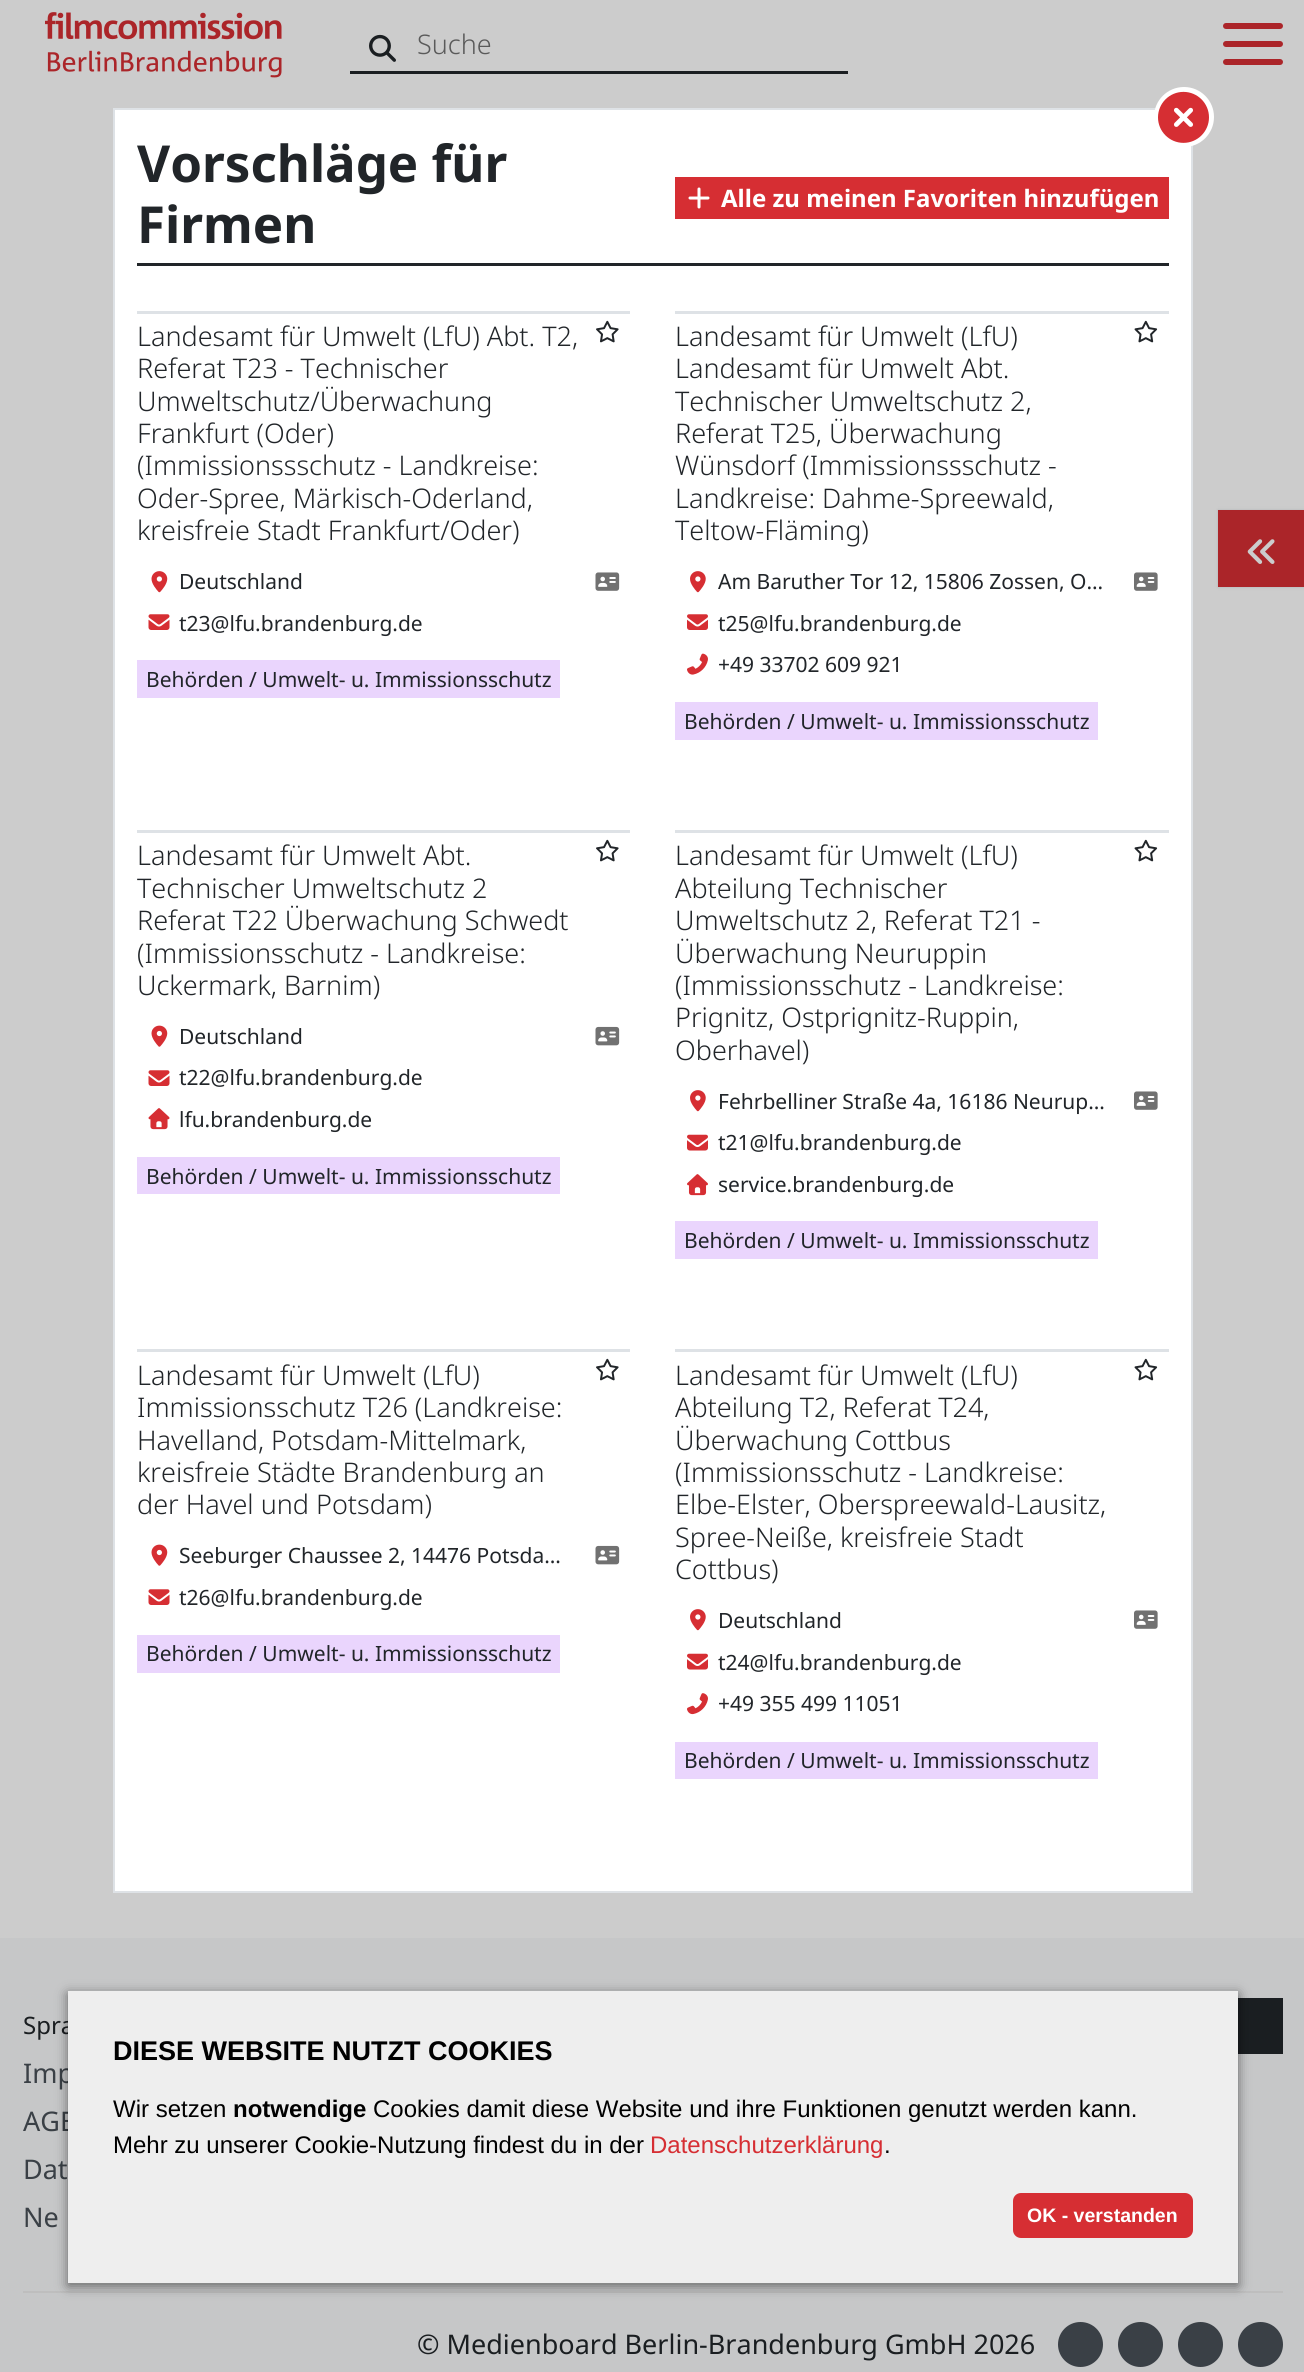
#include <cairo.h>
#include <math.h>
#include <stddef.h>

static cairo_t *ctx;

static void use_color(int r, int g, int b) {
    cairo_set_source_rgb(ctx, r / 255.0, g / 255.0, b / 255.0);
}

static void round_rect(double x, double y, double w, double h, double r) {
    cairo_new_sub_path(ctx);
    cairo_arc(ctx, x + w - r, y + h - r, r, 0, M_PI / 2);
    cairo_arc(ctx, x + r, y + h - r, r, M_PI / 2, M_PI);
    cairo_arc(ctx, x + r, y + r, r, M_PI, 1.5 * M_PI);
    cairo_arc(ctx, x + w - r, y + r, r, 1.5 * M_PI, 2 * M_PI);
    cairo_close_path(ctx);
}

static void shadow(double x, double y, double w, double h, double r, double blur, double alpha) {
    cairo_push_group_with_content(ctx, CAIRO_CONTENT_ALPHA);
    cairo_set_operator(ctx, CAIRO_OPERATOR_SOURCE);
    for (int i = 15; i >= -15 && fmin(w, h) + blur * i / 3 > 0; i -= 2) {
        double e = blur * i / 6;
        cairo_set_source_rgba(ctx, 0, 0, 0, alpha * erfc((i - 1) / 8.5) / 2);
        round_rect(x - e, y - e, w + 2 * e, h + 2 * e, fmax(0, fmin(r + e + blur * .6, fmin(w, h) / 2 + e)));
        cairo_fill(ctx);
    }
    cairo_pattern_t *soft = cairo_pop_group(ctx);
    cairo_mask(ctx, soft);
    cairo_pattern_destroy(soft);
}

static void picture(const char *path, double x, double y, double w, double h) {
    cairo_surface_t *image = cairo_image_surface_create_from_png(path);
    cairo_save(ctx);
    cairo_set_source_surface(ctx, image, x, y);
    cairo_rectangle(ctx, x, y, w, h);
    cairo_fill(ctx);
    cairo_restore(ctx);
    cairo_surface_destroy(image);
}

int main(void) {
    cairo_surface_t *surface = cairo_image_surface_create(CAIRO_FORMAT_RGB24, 1304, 2372);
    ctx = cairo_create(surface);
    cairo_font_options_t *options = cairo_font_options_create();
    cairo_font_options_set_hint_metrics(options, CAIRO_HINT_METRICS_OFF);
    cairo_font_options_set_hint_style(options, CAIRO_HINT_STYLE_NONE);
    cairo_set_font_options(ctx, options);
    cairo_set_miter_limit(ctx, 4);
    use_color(204, 204, 204);
    cairo_paint(ctx);
    picture("img1.png", 45, 12, 237, 66);
    picture("img2.png", 369, 34, 27, 28);
    use_color(26, 30, 33);
    cairo_rectangle(ctx, 350, 71, 498, 3);
    cairo_fill(ctx);
    cairo_select_font_face(ctx, "Noto Sans Light", CAIRO_FONT_SLANT_NORMAL, CAIRO_FONT_WEIGHT_NORMAL);
    cairo_set_font_size(ctx, 27);
    use_color(90, 90, 90);
    cairo_move_to(ctx, 417, 54);
    cairo_show_text(ctx, "Suche");
    use_color(171, 37, 41);
    round_rect(1223, 59, 60, 6, 3);
    cairo_fill(ctx);
    round_rect(1223, 23, 60, 6, 3);
    cairo_fill(ctx);
    round_rect(1223, 41, 60, 6, 3);
    cairo_fill(ctx);
    use_color(255, 255, 255);
    cairo_rectangle(ctx, 114, 109, 1078, 1783);
    cairo_fill_preserve(ctx);
    use_color(222, 226, 230);
    cairo_stroke(ctx);
    use_color(255, 255, 255);
    cairo_arc(ctx, 1184, 117, 30, 0, 2 * M_PI);
    cairo_fill(ctx);
    picture("img3.png", 1158, 91, 51, 52);
    use_color(33, 37, 41);
    cairo_rectangle(ctx, 137, 263, 1032, 3);
    cairo_fill(ctx);
    cairo_select_font_face(ctx, "Noto Sans", CAIRO_FONT_SLANT_NORMAL, CAIRO_FONT_WEIGHT_BOLD);
    cairo_set_font_size(ctx, 51);
    cairo_move_to(ctx, 137, 182);
    cairo_show_text(ctx, "Vorschläge für");
    cairo_move_to(ctx, 137, 243);
    cairo_show_text(ctx, "Firmen");
    use_color(214, 46, 51);
    cairo_rectangle(ctx, 675, 177, 494, 42);
    cairo_fill(ctx);
    picture("img4.png", 688, 187, 22, 22);
    cairo_set_font_size(ctx, 24);
    use_color(255, 255, 255);
    cairo_move_to(ctx, 721, 207);
    cairo_show_text(ctx, "Alle zu meinen Favoriten hinzufügen");
    use_color(222, 226, 230);
    cairo_rectangle(ctx, 137, 311, 493, 3);
    cairo_fill(ctx);
    cairo_select_font_face(ctx, "Noto Sans Light", CAIRO_FONT_SLANT_NORMAL, CAIRO_FONT_WEIGHT_NORMAL);
    cairo_set_font_size(ctx, 27);
    use_color(33, 37, 41);
    cairo_move_to(ctx, 137, 346);
    cairo_show_text(ctx, "Landesamt für Umwelt (LfU) Abt. T2,");
    cairo_move_to(ctx, 137, 378);
    cairo_show_text(ctx, "Referat T23 - Technischer");
    cairo_move_to(ctx, 137, 411);
    cairo_show_text(ctx, "Umweltschutz/Überwachung");
    cairo_move_to(ctx, 137, 443);
    cairo_show_text(ctx, "Frankfurt (Oder)");
    cairo_move_to(ctx, 137, 475);
    cairo_show_text(ctx, "(Immissionssschutz - Landkreise:");
    cairo_move_to(ctx, 137, 508);
    cairo_show_text(ctx, "Oder-Spree, Märkisch-Oderland,");
    cairo_move_to(ctx, 137, 540);
    cairo_show_text(ctx, "kreisfreie Stadt Frankfurt/Oder)");
    picture("img5.png", 596, 320, 23, 23);
    picture("img6.png", 151, 571, 17, 22);
    cairo_select_font_face(ctx, "Noto Sans", CAIRO_FONT_SLANT_NORMAL, CAIRO_FONT_WEIGHT_NORMAL);
    cairo_set_font_size(ctx, 21);
    cairo_move_to(ctx, 179, 589);
    cairo_show_text(ctx, "Deutschland");
    picture("img7.png", 595, 572, 25, 19);
    picture("img8.png", 148, 614, 22, 16);
    cairo_move_to(ctx, 179, 631);
    cairo_show_text(ctx, "t23@lfu.brandenburg.de");
    use_color(234, 213, 253);
    cairo_rectangle(ctx, 137, 660, 423, 38);
    cairo_fill(ctx);
    use_color(33, 37, 41);
    cairo_move_to(ctx, 146, 687);
    cairo_show_text(ctx, "Behörden / Umwelt- u. Immissionsschutz");
    use_color(222, 226, 230);
    cairo_rectangle(ctx, 675, 311, 494, 3);
    cairo_fill(ctx);
    cairo_select_font_face(ctx, "Noto Sans Light", CAIRO_FONT_SLANT_NORMAL, CAIRO_FONT_WEIGHT_NORMAL);
    cairo_set_font_size(ctx, 27);
    use_color(33, 37, 41);
    cairo_move_to(ctx, 675, 346);
    cairo_show_text(ctx, "Landesamt für Umwelt (LfU)");
    cairo_move_to(ctx, 675, 378);
    cairo_show_text(ctx, "Landesamt für Umwelt Abt.");
    cairo_move_to(ctx, 675, 411);
    cairo_show_text(ctx, "Technischer Umweltschutz 2,");
    cairo_move_to(ctx, 675, 443);
    cairo_show_text(ctx, "Referat T25, Überwachung");
    cairo_move_to(ctx, 675, 475);
    cairo_show_text(ctx, "Wünsdorf (Immissionssschutz -");
    cairo_move_to(ctx, 675, 508);
    cairo_show_text(ctx, "Landkreise: Dahme-Spreewald,");
    cairo_move_to(ctx, 675, 540);
    cairo_show_text(ctx, "Teltow-Fläming)");
    picture("img9.png", 1134, 320, 24, 23);
    picture("img10.png", 690, 571, 16, 22);
    cairo_select_font_face(ctx, "Noto Sans", CAIRO_FONT_SLANT_NORMAL, CAIRO_FONT_WEIGHT_NORMAL);
    cairo_set_font_size(ctx, 21);
    cairo_move_to(ctx, 718, 589);
    cairo_show_text(ctx, "Am Baruther Tor 12, 15806 Zossen, O…");
    picture("img11.png", 1134, 572, 24, 19);
    picture("img12.png", 687, 614, 21, 16);
    cairo_move_to(ctx, 718, 631);
    cairo_show_text(ctx, "t25@lfu.brandenburg.de");
    picture("img13.png", 687, 653, 21, 22);
    cairo_move_to(ctx, 718, 672);
    cairo_show_text(ctx, "+49 33702 609 921");
    use_color(234, 213, 253);
    cairo_rectangle(ctx, 675, 702, 423, 38);
    cairo_fill(ctx);
    use_color(33, 37, 41);
    cairo_move_to(ctx, 684, 729);
    cairo_show_text(ctx, "Behörden / Umwelt- u. Immissionsschutz");
    use_color(222, 226, 230);
    cairo_rectangle(ctx, 137, 830, 493, 3);
    cairo_fill(ctx);
    cairo_select_font_face(ctx, "Noto Sans Light", CAIRO_FONT_SLANT_NORMAL, CAIRO_FONT_WEIGHT_NORMAL);
    cairo_set_font_size(ctx, 27);
    use_color(33, 37, 41);
    cairo_move_to(ctx, 137, 865);
    cairo_show_text(ctx, "Landesamt für Umwelt Abt.");
    cairo_move_to(ctx, 137, 898);
    cairo_show_text(ctx, "Technischer Umweltschutz 2");
    cairo_move_to(ctx, 137, 930);
    cairo_show_text(ctx, "Referat T22 Überwachung Schwedt");
    cairo_move_to(ctx, 137, 963);
    cairo_show_text(ctx, "(Immissionsschutz - Landkreise:");
    cairo_move_to(ctx, 137, 995);
    cairo_show_text(ctx, "Uckermark, Barnim)");
    picture("img5.png", 596, 839, 23, 23);
    picture("img14.png", 151, 1025, 17, 22);
    cairo_select_font_face(ctx, "Noto Sans", CAIRO_FONT_SLANT_NORMAL, CAIRO_FONT_WEIGHT_NORMAL);
    cairo_set_font_size(ctx, 21);
    cairo_move_to(ctx, 179, 1044);
    cairo_show_text(ctx, "Deutschland");
    picture("img15.png", 595, 1026, 25, 20);
    picture("img8.png", 148, 1070, 22, 16);
    cairo_move_to(ctx, 179, 1085);
    cairo_show_text(ctx, "t22@lfu.brandenburg.de");
    picture("img16.png", 148, 1108, 22, 22);
    cairo_move_to(ctx, 179, 1127);
    cairo_show_text(ctx, "lfu.brandenburg.de");
    use_color(234, 213, 253);
    cairo_rectangle(ctx, 137, 1157, 423, 37);
    cairo_fill(ctx);
    use_color(33, 37, 41);
    cairo_move_to(ctx, 146, 1184);
    cairo_show_text(ctx, "Behörden / Umwelt- u. Immissionsschutz");
    use_color(222, 226, 230);
    cairo_rectangle(ctx, 675, 830, 494, 3);
    cairo_fill(ctx);
    cairo_select_font_face(ctx, "Noto Sans Light", CAIRO_FONT_SLANT_NORMAL, CAIRO_FONT_WEIGHT_NORMAL);
    cairo_set_font_size(ctx, 27);
    use_color(33, 37, 41);
    cairo_move_to(ctx, 675, 865);
    cairo_show_text(ctx, "Landesamt für Umwelt (LfU)");
    cairo_move_to(ctx, 675, 898);
    cairo_show_text(ctx, "Abteilung Technischer");
    cairo_move_to(ctx, 675, 930);
    cairo_show_text(ctx, "Umweltschutz 2, Referat T21 -");
    cairo_move_to(ctx, 675, 963);
    cairo_show_text(ctx, "Überwachung Neuruppin");
    cairo_move_to(ctx, 675, 995);
    cairo_show_text(ctx, "(Immissionsschutz - Landkreise:");
    cairo_move_to(ctx, 675, 1027);
    cairo_show_text(ctx, "Prignitz, Ostprignitz-Ruppin,");
    cairo_move_to(ctx, 675, 1060);
    cairo_show_text(ctx, "Oberhavel)");
    picture("img9.png", 1134, 839, 24, 23);
    picture("img10.png", 690, 1090, 16, 22);
    cairo_select_font_face(ctx, "Noto Sans", CAIRO_FONT_SLANT_NORMAL, CAIRO_FONT_WEIGHT_NORMAL);
    cairo_set_font_size(ctx, 21);
    cairo_move_to(ctx, 718, 1109);
    cairo_show_text(ctx, "Fehrbelliner Straße 4a, 16186 Neurup…");
    picture("img11.png", 1134, 1091, 24, 19);
    picture("img17.png", 687, 1134, 21, 17);
    cairo_move_to(ctx, 718, 1150);
    cairo_show_text(ctx, "t21@lfu.brandenburg.de");
    picture("img18.png", 687, 1174, 21, 22);
    cairo_move_to(ctx, 718, 1192);
    cairo_show_text(ctx, "service.brandenburg.de");
    use_color(234, 213, 253);
    cairo_rectangle(ctx, 675, 1221, 423, 38);
    cairo_fill(ctx);
    use_color(33, 37, 41);
    cairo_move_to(ctx, 684, 1248);
    cairo_show_text(ctx, "Behörden / Umwelt- u. Immissionsschutz");
    use_color(222, 226, 230);
    cairo_rectangle(ctx, 137, 1349, 493, 3);
    cairo_fill(ctx);
    cairo_select_font_face(ctx, "Noto Sans Light", CAIRO_FONT_SLANT_NORMAL, CAIRO_FONT_WEIGHT_NORMAL);
    cairo_set_font_size(ctx, 27);
    use_color(33, 37, 41);
    cairo_move_to(ctx, 137, 1385);
    cairo_show_text(ctx, "Landesamt für Umwelt (LfU)");
    cairo_move_to(ctx, 137, 1417);
    cairo_show_text(ctx, "Immissionsschutz T26 (Landkreise:");
    cairo_move_to(ctx, 137, 1450);
    cairo_show_text(ctx, "Havelland, Potsdam-Mittelmark,");
    cairo_move_to(ctx, 137, 1482);
    cairo_show_text(ctx, "kreisfreie Städte Brandenburg an");
    cairo_move_to(ctx, 137, 1514);
    cairo_show_text(ctx, "der Havel und Potsdam)");
    picture("img5.png", 596, 1358, 23, 23);
    picture("img14.png", 151, 1544, 17, 22);
    cairo_select_font_face(ctx, "Noto Sans", CAIRO_FONT_SLANT_NORMAL, CAIRO_FONT_WEIGHT_NORMAL);
    cairo_set_font_size(ctx, 21);
    cairo_move_to(ctx, 179, 1563);
    cairo_show_text(ctx, "Seeburger Chaussee 2, 14476 Potsda…");
    picture("img15.png", 595, 1545, 25, 20);
    picture("img8.png", 148, 1589, 22, 16);
    cairo_move_to(ctx, 179, 1605);
    cairo_show_text(ctx, "t26@lfu.brandenburg.de");
    use_color(234, 213, 253);
    cairo_rectangle(ctx, 137, 1635, 423, 38);
    cairo_fill(ctx);
    use_color(33, 37, 41);
    cairo_move_to(ctx, 146, 1661);
    cairo_show_text(ctx, "Behörden / Umwelt- u. Immissionsschutz");
    use_color(222, 226, 230);
    cairo_rectangle(ctx, 675, 1349, 494, 3);
    cairo_fill(ctx);
    cairo_select_font_face(ctx, "Noto Sans Light", CAIRO_FONT_SLANT_NORMAL, CAIRO_FONT_WEIGHT_NORMAL);
    cairo_set_font_size(ctx, 27);
    use_color(33, 37, 41);
    cairo_move_to(ctx, 675, 1385);
    cairo_show_text(ctx, "Landesamt für Umwelt (LfU)");
    cairo_move_to(ctx, 675, 1417);
    cairo_show_text(ctx, "Abteilung T2, Referat T24,");
    cairo_move_to(ctx, 675, 1450);
    cairo_show_text(ctx, "Überwachung Cottbus");
    cairo_move_to(ctx, 675, 1482);
    cairo_show_text(ctx, "(Immissionsschutz - Landkreise:");
    cairo_move_to(ctx, 675, 1514);
    cairo_show_text(ctx, "Elbe-Elster, Oberspreewald-Lausitz,");
    cairo_move_to(ctx, 675, 1547);
    cairo_show_text(ctx, "Spree-Neiße, kreisfreie Stadt");
    cairo_move_to(ctx, 675, 1579);
    cairo_show_text(ctx, "Cottbus)");
    picture("img9.png", 1134, 1358, 24, 23);
    picture("img10.png", 690, 1609, 16, 22);
    cairo_select_font_face(ctx, "Noto Sans", CAIRO_FONT_SLANT_NORMAL, CAIRO_FONT_WEIGHT_NORMAL);
    cairo_set_font_size(ctx, 21);
    cairo_move_to(ctx, 718, 1628);
    cairo_show_text(ctx, "Deutschland");
    picture("img11.png", 1134, 1610, 24, 19);
    picture("img17.png", 687, 1653, 21, 17);
    cairo_move_to(ctx, 718, 1670);
    cairo_show_text(ctx, "t24@lfu.brandenburg.de");
    picture("img19.png", 687, 1693, 21, 22);
    cairo_move_to(ctx, 718, 1711);
    cairo_show_text(ctx, "+49 355 499 11051");
    use_color(234, 213, 253);
    cairo_rectangle(ctx, 675, 1742, 423, 37);
    cairo_fill(ctx);
    use_color(33, 37, 41);
    cairo_move_to(ctx, 684, 1768);
    cairo_show_text(ctx, "Behörden / Umwelt- u. Immissionsschutz");
    use_color(178, 181, 184);
    shadow(1218, 510, 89, 77, 0, 1.5, 1);
    use_color(171, 37, 41);
    cairo_rectangle(ctx, 1218, 510, 86, 77);
    cairo_fill(ctx);
    picture("img20.png", 1247, 539, 28, 25);
    use_color(198, 199, 200);
    cairo_rectangle(ctx, 0, 1938, 1304, 434);
    cairo_fill(ctx);
    cairo_set_font_size(ctx, 24);
    use_color(26, 30, 33);
    cairo_move_to(ctx, 23, 2034);
    cairo_show_text(ctx, "Spra");
    cairo_rectangle(ctx, 1238, 1998, 45, 56);
    cairo_fill(ctx);
    cairo_set_font_size(ctx, 27);
    use_color(58, 64, 70);
    cairo_move_to(ctx, 23, 2083);
    cairo_show_text(ctx, "Imp");
    cairo_move_to(ctx, 23, 2131);
    cairo_show_text(ctx, "AGB");
    cairo_move_to(ctx, 23, 2179);
    cairo_show_text(ctx, "Dat");
    cairo_move_to(ctx, 23, 2227);
    cairo_show_text(ctx, "Ne");
    use_color(190, 190, 190);
    cairo_rectangle(ctx, 23, 2291, 1260, 2);
    cairo_fill(ctx);
    use_color(26, 30, 33);
    cairo_move_to(ctx, 417, 2354);
    cairo_show_text(ctx, "© Medienboard Berlin-Brandenburg GmbH 2026");
    use_color(58, 64, 70);
    cairo_new_path(ctx);
    cairo_arc(ctx, 1080.5, 2344.5, 22.5, 0, 2 * M_PI);
    cairo_fill(ctx);
    cairo_arc(ctx, 1140.5, 2344.5, 22.5, 0, 2 * M_PI);
    cairo_fill(ctx);
    cairo_arc(ctx, 1200.5, 2344.5, 22.5, 0, 2 * M_PI);
    cairo_fill(ctx);
    cairo_arc(ctx, 1260.5, 2344.5, 22.5, 0, 2 * M_PI);
    cairo_fill(ctx);
    use_color(0, 0, 0);
    shadow(68, 1994, 1170, 292, 0, 6, 0.5);
    use_color(238, 238, 238);
    cairo_rectangle(ctx, 68, 1991, 1170, 292);
    cairo_fill(ctx);
    cairo_select_font_face(ctx, "Liberation Sans", CAIRO_FONT_SLANT_NORMAL, CAIRO_FONT_WEIGHT_BOLD);
    use_color(0, 0, 0);
    cairo_move_to(ctx, 113, 2060);
    cairo_show_text(ctx, "DIESE WEBSITE NUTZT COOKIES");
    cairo_select_font_face(ctx, "Liberation Sans", CAIRO_FONT_SLANT_NORMAL, CAIRO_FONT_WEIGHT_NORMAL);
    cairo_set_font_size(ctx, 24);
    cairo_move_to(ctx, 113, 2117);
    cairo_show_text(ctx, "Wir setzen");
    cairo_select_font_face(ctx, "Liberation Sans", CAIRO_FONT_SLANT_NORMAL, CAIRO_FONT_WEIGHT_BOLD);
    cairo_move_to(ctx, 233, 2117);
    cairo_show_text(ctx, "notwendige");
    cairo_select_font_face(ctx, "Liberation Sans", CAIRO_FONT_SLANT_NORMAL, CAIRO_FONT_WEIGHT_NORMAL);
    cairo_move_to(ctx, 373, 2117);
    cairo_show_text(ctx, "Cookies damit diese Website und ihre Funktionen genutzt werden kann.");
    cairo_move_to(ctx, 113, 2153);
    cairo_show_text(ctx, "Mehr zu unserer Cookie-Nutzung findest du in der");
    use_color(214, 46, 51);
    cairo_move_to(ctx, 650, 2153);
    cairo_show_text(ctx, "Datenschutzerklärung");
    use_color(0, 0, 0);
    cairo_move_to(ctx, 884, 2153);
    cairo_show_text(ctx, ".");
    use_color(214, 46, 51);
    round_rect(1013, 2193, 180, 45, 8);
    cairo_fill(ctx);
    cairo_select_font_face(ctx, "Liberation Sans", CAIRO_FONT_SLANT_NORMAL, CAIRO_FONT_WEIGHT_BOLD);
    cairo_set_font_size(ctx, 19.5);
    use_color(255, 255, 255);
    cairo_move_to(ctx, 1027, 2222);
    cairo_show_text(ctx, "OK - verstanden");
    cairo_surface_write_to_png(surface, "result.png");
    cairo_font_options_destroy(options);
    cairo_destroy(ctx);
    cairo_surface_destroy(surface);
    return 0;
}
